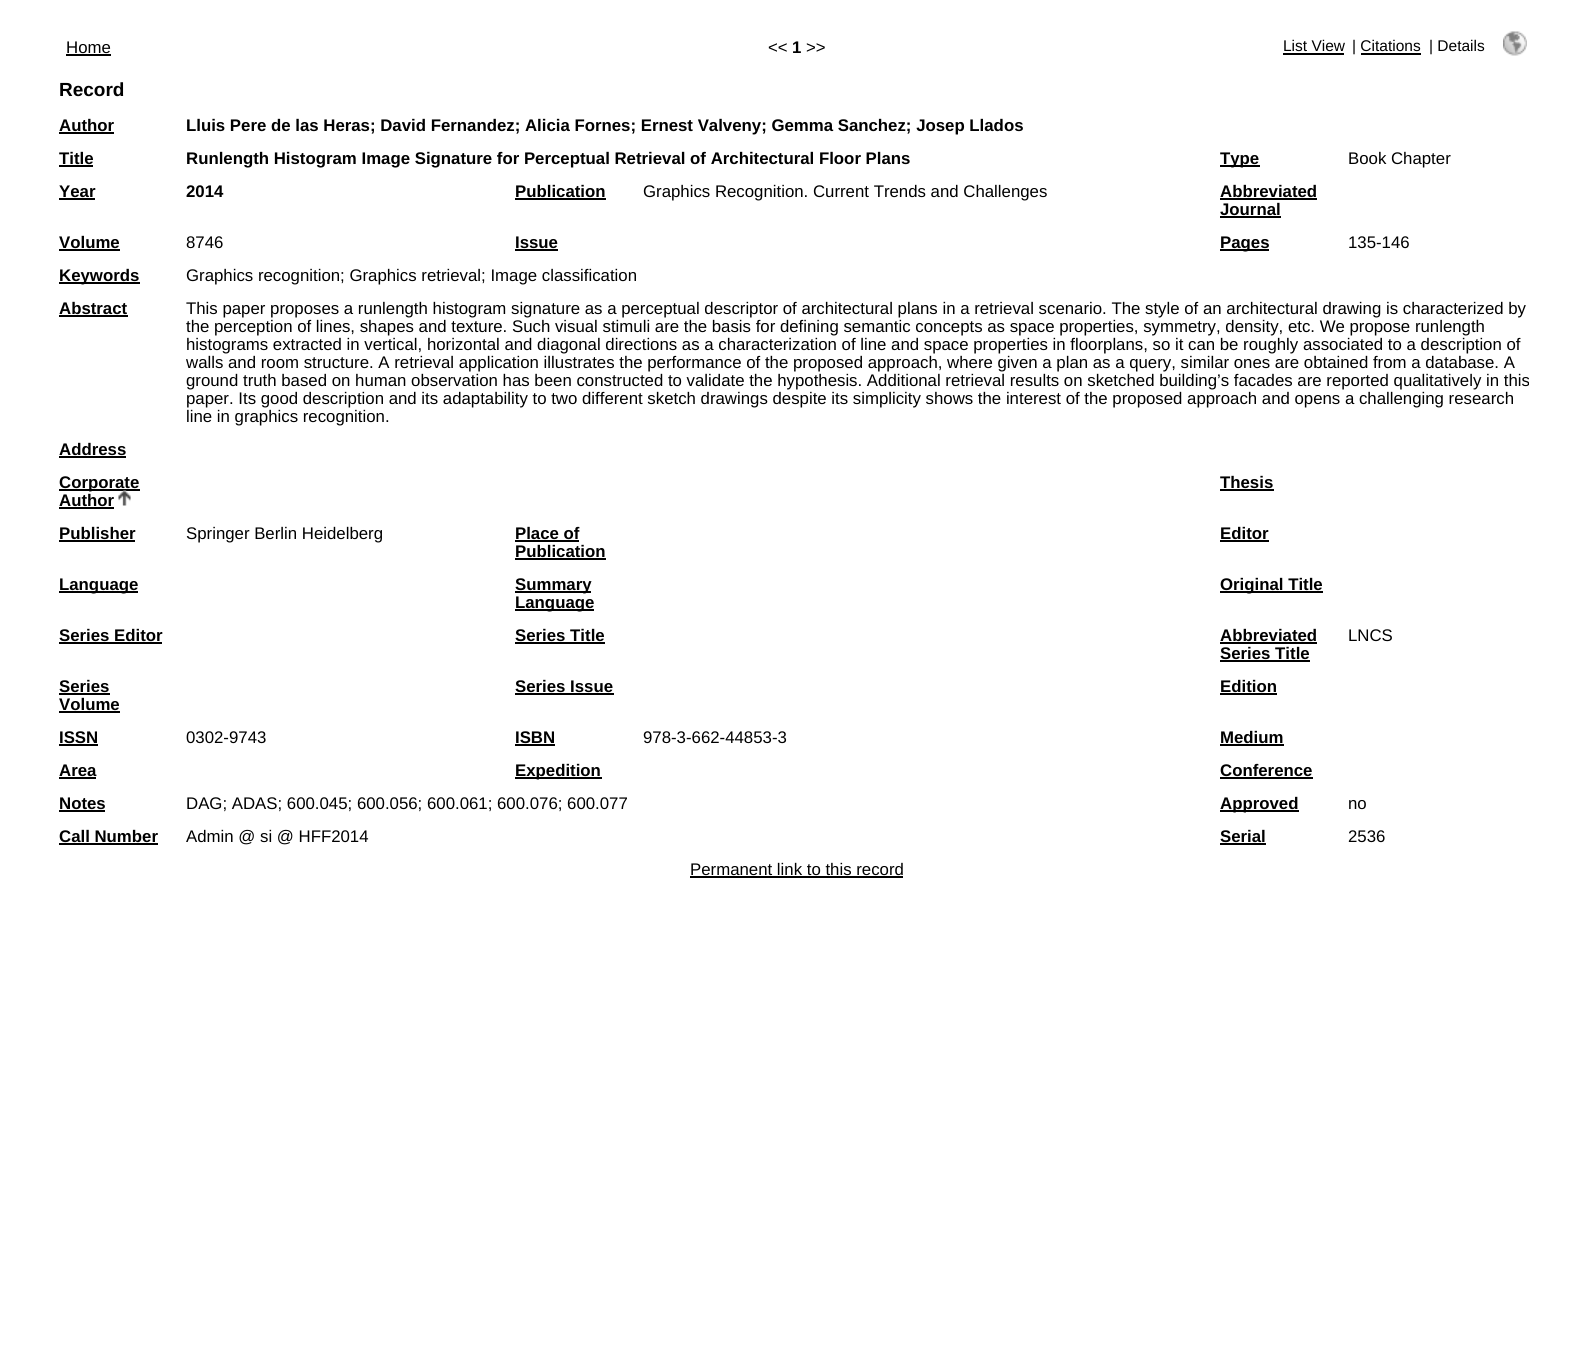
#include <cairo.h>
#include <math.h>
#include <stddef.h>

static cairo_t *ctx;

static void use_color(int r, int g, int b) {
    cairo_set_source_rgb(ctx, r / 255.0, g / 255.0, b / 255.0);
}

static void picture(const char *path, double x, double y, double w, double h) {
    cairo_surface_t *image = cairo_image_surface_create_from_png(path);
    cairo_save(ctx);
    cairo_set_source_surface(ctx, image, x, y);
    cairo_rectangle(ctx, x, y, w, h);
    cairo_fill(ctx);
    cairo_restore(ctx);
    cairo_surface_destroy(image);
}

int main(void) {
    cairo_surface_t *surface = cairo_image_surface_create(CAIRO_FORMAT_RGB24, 1592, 1359);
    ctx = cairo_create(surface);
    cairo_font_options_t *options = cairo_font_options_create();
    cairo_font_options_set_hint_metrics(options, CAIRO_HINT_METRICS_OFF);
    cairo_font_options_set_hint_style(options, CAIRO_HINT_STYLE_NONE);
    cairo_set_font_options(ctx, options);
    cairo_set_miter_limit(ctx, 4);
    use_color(255, 255, 255);
    cairo_paint(ctx);
    cairo_select_font_face(ctx, "Liberation Sans", CAIRO_FONT_SLANT_NORMAL, CAIRO_FONT_WEIGHT_NORMAL);
    cairo_set_font_size(ctx, 16.8);
    use_color(0, 0, 0);
    cairo_move_to(ctx, 66, 53);
    cairo_show_text(ctx, "Home");
    cairo_rectangle(ctx, 66, 54, 45, 2);
    cairo_fill(ctx);
    cairo_move_to(ctx, 768, 53);
    cairo_show_text(ctx, "<<");
    cairo_select_font_face(ctx, "Liberation Sans", CAIRO_FONT_SLANT_NORMAL, CAIRO_FONT_WEIGHT_BOLD);
    cairo_move_to(ctx, 792, 53);
    cairo_show_text(ctx, "1");
    cairo_select_font_face(ctx, "Liberation Sans", CAIRO_FONT_SLANT_NORMAL, CAIRO_FONT_WEIGHT_NORMAL);
    cairo_move_to(ctx, 806, 53);
    cairo_show_text(ctx, ">>");
    cairo_set_font_size(ctx, 15.5);
    cairo_move_to(ctx, 1283, 51);
    cairo_show_text(ctx, "List View");
    cairo_rectangle(ctx, 1283, 53, 61, 2);
    cairo_fill(ctx);
    cairo_move_to(ctx, 1352, 51);
    cairo_show_text(ctx, "| Citations");
    cairo_rectangle(ctx, 1361, 53, 60, 2);
    cairo_fill(ctx);
    cairo_move_to(ctx, 1429, 51);
    cairo_show_text(ctx, "| Details");
    picture("img1.png", 1503, 31, 24, 25);
    cairo_select_font_face(ctx, "Liberation Sans", CAIRO_FONT_SLANT_NORMAL, CAIRO_FONT_WEIGHT_BOLD);
    cairo_set_font_size(ctx, 19);
    cairo_move_to(ctx, 59, 96);
    cairo_show_text(ctx, "Record");
    cairo_set_font_size(ctx, 16.8);
    cairo_move_to(ctx, 59, 131);
    cairo_show_text(ctx, "Author");
    cairo_rectangle(ctx, 59, 132, 55, 2);
    cairo_fill(ctx);
    cairo_move_to(ctx, 186, 131);
    cairo_show_text(ctx, "Lluis Pere de las Heras; David Fernandez; Alicia Fornes; Ernest Valveny; Gemma Sanchez; Josep Llados");
    cairo_move_to(ctx, 59, 164);
    cairo_show_text(ctx, "Title");
    cairo_rectangle(ctx, 59, 165, 34, 2);
    cairo_fill(ctx);
    cairo_move_to(ctx, 186, 164);
    cairo_show_text(ctx, "Runlength Histogram Image Signature for Perceptual Retrieval of Architectural Floor Plans");
    cairo_rectangle(ctx, 1220, 165, 40, 2);
    cairo_fill(ctx);
    cairo_move_to(ctx, 1220, 164);
    cairo_show_text(ctx, "Type");
    cairo_select_font_face(ctx, "Liberation Sans", CAIRO_FONT_SLANT_NORMAL, CAIRO_FONT_WEIGHT_NORMAL);
    cairo_move_to(ctx, 1348, 164);
    cairo_show_text(ctx, "Book Chapter");
    cairo_select_font_face(ctx, "Liberation Sans", CAIRO_FONT_SLANT_NORMAL, CAIRO_FONT_WEIGHT_BOLD);
    cairo_move_to(ctx, 59, 197);
    cairo_show_text(ctx, "Year");
    cairo_rectangle(ctx, 59, 198, 36, 2);
    cairo_fill(ctx);
    cairo_move_to(ctx, 186, 197);
    cairo_show_text(ctx, "2014");
    cairo_move_to(ctx, 515, 197);
    cairo_show_text(ctx, "Publication");
    cairo_rectangle(ctx, 515, 198, 91, 2);
    cairo_fill(ctx);
    cairo_select_font_face(ctx, "Liberation Sans", CAIRO_FONT_SLANT_NORMAL, CAIRO_FONT_WEIGHT_NORMAL);
    cairo_move_to(ctx, 643, 197);
    cairo_show_text(ctx, "Graphics Recognition. Current Trends and Challenges");
    cairo_select_font_face(ctx, "Liberation Sans", CAIRO_FONT_SLANT_NORMAL, CAIRO_FONT_WEIGHT_BOLD);
    cairo_move_to(ctx, 1220, 197);
    cairo_show_text(ctx, "Abbreviated");
    cairo_rectangle(ctx, 1220, 198, 97, 2);
    cairo_fill(ctx);
    cairo_move_to(ctx, 1220, 215);
    cairo_show_text(ctx, "Journal");
    cairo_rectangle(ctx, 1220, 216, 61, 2);
    cairo_fill(ctx);
    cairo_move_to(ctx, 59, 248);
    cairo_show_text(ctx, "Volume");
    cairo_rectangle(ctx, 59, 249, 61, 2);
    cairo_fill(ctx);
    cairo_select_font_face(ctx, "Liberation Sans", CAIRO_FONT_SLANT_NORMAL, CAIRO_FONT_WEIGHT_NORMAL);
    cairo_move_to(ctx, 186, 248);
    cairo_show_text(ctx, "8746");
    cairo_select_font_face(ctx, "Liberation Sans", CAIRO_FONT_SLANT_NORMAL, CAIRO_FONT_WEIGHT_BOLD);
    cairo_move_to(ctx, 515, 248);
    cairo_show_text(ctx, "Issue");
    cairo_rectangle(ctx, 515, 249, 43, 2);
    cairo_fill(ctx);
    cairo_rectangle(ctx, 1220, 249, 49, 2);
    cairo_fill(ctx);
    cairo_move_to(ctx, 1220, 248);
    cairo_show_text(ctx, "Pages");
    cairo_select_font_face(ctx, "Liberation Sans", CAIRO_FONT_SLANT_NORMAL, CAIRO_FONT_WEIGHT_NORMAL);
    cairo_move_to(ctx, 1348, 248);
    cairo_show_text(ctx, "135-146");
    cairo_rectangle(ctx, 59, 282, 81, 2);
    cairo_fill(ctx);
    cairo_select_font_face(ctx, "Liberation Sans", CAIRO_FONT_SLANT_NORMAL, CAIRO_FONT_WEIGHT_BOLD);
    cairo_move_to(ctx, 59, 281);
    cairo_show_text(ctx, "Keywords");
    cairo_select_font_face(ctx, "Liberation Sans", CAIRO_FONT_SLANT_NORMAL, CAIRO_FONT_WEIGHT_NORMAL);
    cairo_move_to(ctx, 186, 281);
    cairo_show_text(ctx, "Graphics recognition; Graphics retrieval; Image classification");
    cairo_select_font_face(ctx, "Liberation Sans", CAIRO_FONT_SLANT_NORMAL, CAIRO_FONT_WEIGHT_BOLD);
    cairo_move_to(ctx, 59, 314);
    cairo_show_text(ctx, "Abstract");
    cairo_rectangle(ctx, 59, 315, 69, 2);
    cairo_fill(ctx);
    cairo_select_font_face(ctx, "Liberation Sans", CAIRO_FONT_SLANT_NORMAL, CAIRO_FONT_WEIGHT_NORMAL);
    cairo_move_to(ctx, 186, 314);
    cairo_show_text(ctx, "This paper proposes a runlength histogram signature as a perceptual descriptor of architectural plans in a retrieval scenario. The style of an architectural drawing is characterized by");
    cairo_move_to(ctx, 186, 332);
    cairo_show_text(ctx, "the perception of lines, shapes and texture. Such visual stimuli are the basis for defining semantic concepts as space properties, symmetry, density, etc. We propose runlength");
    cairo_move_to(ctx, 186, 350);
    cairo_show_text(ctx, "histograms extracted in vertical, horizontal and diagonal directions as a characterization of line and space properties in floorplans, so it can be roughly associated to a description of");
    cairo_move_to(ctx, 186, 368);
    cairo_show_text(ctx, "walls and room structure. A retrieval application illustrates the performance of the proposed approach, where given a plan as a query, similar ones are obtained from a database. A");
    cairo_move_to(ctx, 186, 386);
    cairo_show_text(ctx, "ground truth based on human observation has been constructed to validate the hypothesis. Additional retrieval results on sketched building’s facades are reported qualitatively in this");
    cairo_move_to(ctx, 186, 404);
    cairo_show_text(ctx, "paper. Its good description and its adaptability to two different sketch drawings despite its simplicity shows the interest of the proposed approach and opens a challenging research");
    cairo_move_to(ctx, 186, 422);
    cairo_show_text(ctx, "line in graphics recognition.");
    cairo_select_font_face(ctx, "Liberation Sans", CAIRO_FONT_SLANT_NORMAL, CAIRO_FONT_WEIGHT_BOLD);
    cairo_move_to(ctx, 59, 455);
    cairo_show_text(ctx, "Address");
    cairo_rectangle(ctx, 59, 456, 67, 2);
    cairo_fill(ctx);
    cairo_rectangle(ctx, 59, 489, 81, 2);
    cairo_fill(ctx);
    cairo_move_to(ctx, 59, 488);
    cairo_show_text(ctx, "Corporate");
    cairo_move_to(ctx, 59, 506);
    cairo_show_text(ctx, "Author");
    cairo_rectangle(ctx, 59, 507, 55, 2);
    cairo_fill(ctx);
    picture("img2.png", 118, 490, 13, 16);
    cairo_move_to(ctx, 1220, 488);
    cairo_show_text(ctx, "Thesis");
    cairo_rectangle(ctx, 1220, 489, 54, 2);
    cairo_fill(ctx);
    cairo_move_to(ctx, 59, 539);
    cairo_show_text(ctx, "Publisher");
    cairo_rectangle(ctx, 59, 540, 76, 2);
    cairo_fill(ctx);
    cairo_select_font_face(ctx, "Liberation Sans", CAIRO_FONT_SLANT_NORMAL, CAIRO_FONT_WEIGHT_NORMAL);
    cairo_move_to(ctx, 186, 539);
    cairo_show_text(ctx, "Springer Berlin Heidelberg");
    cairo_select_font_face(ctx, "Liberation Sans", CAIRO_FONT_SLANT_NORMAL, CAIRO_FONT_WEIGHT_BOLD);
    cairo_move_to(ctx, 515, 539);
    cairo_show_text(ctx, "Place of");
    cairo_rectangle(ctx, 515, 540, 64, 2);
    cairo_fill(ctx);
    cairo_move_to(ctx, 515, 557);
    cairo_show_text(ctx, "Publication");
    cairo_rectangle(ctx, 515, 558, 91, 2);
    cairo_fill(ctx);
    cairo_move_to(ctx, 1220, 539);
    cairo_show_text(ctx, "Editor");
    cairo_rectangle(ctx, 1220, 540, 49, 2);
    cairo_fill(ctx);
    cairo_rectangle(ctx, 59, 591, 79, 2);
    cairo_fill(ctx);
    cairo_move_to(ctx, 59, 590);
    cairo_show_text(ctx, "Language");
    cairo_rectangle(ctx, 515, 591, 76, 2);
    cairo_fill(ctx);
    cairo_move_to(ctx, 515, 590);
    cairo_show_text(ctx, "Summary");
    cairo_rectangle(ctx, 515, 609, 79, 2);
    cairo_fill(ctx);
    cairo_move_to(ctx, 515, 608);
    cairo_show_text(ctx, "Language");
    cairo_rectangle(ctx, 1220, 591, 103, 2);
    cairo_fill(ctx);
    cairo_move_to(ctx, 1220, 590);
    cairo_show_text(ctx, "Original Title");
    cairo_move_to(ctx, 59, 641);
    cairo_show_text(ctx, "Series Editor");
    cairo_rectangle(ctx, 59, 642, 103, 2);
    cairo_fill(ctx);
    cairo_move_to(ctx, 515, 641);
    cairo_show_text(ctx, "Series Title");
    cairo_rectangle(ctx, 515, 642, 90, 2);
    cairo_fill(ctx);
    cairo_move_to(ctx, 1220, 641);
    cairo_show_text(ctx, "Abbreviated");
    cairo_rectangle(ctx, 1220, 642, 97, 2);
    cairo_fill(ctx);
    cairo_move_to(ctx, 1220, 659);
    cairo_show_text(ctx, "Series Title");
    cairo_rectangle(ctx, 1220, 660, 90, 2);
    cairo_fill(ctx);
    cairo_select_font_face(ctx, "Liberation Sans", CAIRO_FONT_SLANT_NORMAL, CAIRO_FONT_WEIGHT_NORMAL);
    cairo_move_to(ctx, 1348, 641);
    cairo_show_text(ctx, "LNCS");
    cairo_select_font_face(ctx, "Liberation Sans", CAIRO_FONT_SLANT_NORMAL, CAIRO_FONT_WEIGHT_BOLD);
    cairo_move_to(ctx, 59, 692);
    cairo_show_text(ctx, "Series");
    cairo_rectangle(ctx, 59, 693, 51, 2);
    cairo_fill(ctx);
    cairo_move_to(ctx, 59, 710);
    cairo_show_text(ctx, "Volume");
    cairo_rectangle(ctx, 59, 711, 61, 2);
    cairo_fill(ctx);
    cairo_move_to(ctx, 515, 692);
    cairo_show_text(ctx, "Series Issue");
    cairo_rectangle(ctx, 515, 693, 99, 2);
    cairo_fill(ctx);
    cairo_move_to(ctx, 1220, 692);
    cairo_show_text(ctx, "Edition");
    cairo_rectangle(ctx, 1220, 693, 57, 2);
    cairo_fill(ctx);
    cairo_move_to(ctx, 59, 743);
    cairo_show_text(ctx, "ISSN");
    cairo_rectangle(ctx, 59, 744, 39, 2);
    cairo_fill(ctx);
    cairo_select_font_face(ctx, "Liberation Sans", CAIRO_FONT_SLANT_NORMAL, CAIRO_FONT_WEIGHT_NORMAL);
    cairo_move_to(ctx, 186, 743);
    cairo_show_text(ctx, "0302-9743");
    cairo_select_font_face(ctx, "Liberation Sans", CAIRO_FONT_SLANT_NORMAL, CAIRO_FONT_WEIGHT_BOLD);
    cairo_move_to(ctx, 515, 743);
    cairo_show_text(ctx, "ISBN");
    cairo_rectangle(ctx, 515, 744, 40, 2);
    cairo_fill(ctx);
    cairo_select_font_face(ctx, "Liberation Sans", CAIRO_FONT_SLANT_NORMAL, CAIRO_FONT_WEIGHT_NORMAL);
    cairo_move_to(ctx, 643, 743);
    cairo_show_text(ctx, "978-3-662-44853-3");
    cairo_select_font_face(ctx, "Liberation Sans", CAIRO_FONT_SLANT_NORMAL, CAIRO_FONT_WEIGHT_BOLD);
    cairo_move_to(ctx, 1220, 743);
    cairo_show_text(ctx, "Medium");
    cairo_rectangle(ctx, 1220, 744, 64, 2);
    cairo_fill(ctx);
    cairo_move_to(ctx, 59, 776);
    cairo_show_text(ctx, "Area");
    cairo_rectangle(ctx, 59, 777, 37, 2);
    cairo_fill(ctx);
    cairo_rectangle(ctx, 515, 777, 87, 2);
    cairo_fill(ctx);
    cairo_move_to(ctx, 515, 776);
    cairo_show_text(ctx, "Expedition");
    cairo_move_to(ctx, 1220, 776);
    cairo_show_text(ctx, "Conference");
    cairo_rectangle(ctx, 1220, 777, 93, 2);
    cairo_fill(ctx);
    cairo_move_to(ctx, 59, 809);
    cairo_show_text(ctx, "Notes");
    cairo_rectangle(ctx, 59, 810, 46, 2);
    cairo_fill(ctx);
    cairo_select_font_face(ctx, "Liberation Sans", CAIRO_FONT_SLANT_NORMAL, CAIRO_FONT_WEIGHT_NORMAL);
    cairo_move_to(ctx, 186, 809);
    cairo_show_text(ctx, "DAG; ADAS; 600.045; 600.056; 600.061; 600.076; 600.077");
    cairo_rectangle(ctx, 1220, 810, 79, 2);
    cairo_fill(ctx);
    cairo_select_font_face(ctx, "Liberation Sans", CAIRO_FONT_SLANT_NORMAL, CAIRO_FONT_WEIGHT_BOLD);
    cairo_move_to(ctx, 1220, 809);
    cairo_show_text(ctx, "Approved");
    cairo_select_font_face(ctx, "Liberation Sans", CAIRO_FONT_SLANT_NORMAL, CAIRO_FONT_WEIGHT_NORMAL);
    cairo_move_to(ctx, 1348, 809);
    cairo_show_text(ctx, "no");
    cairo_select_font_face(ctx, "Liberation Sans", CAIRO_FONT_SLANT_NORMAL, CAIRO_FONT_WEIGHT_BOLD);
    cairo_move_to(ctx, 59, 842);
    cairo_show_text(ctx, "Call Number");
    cairo_rectangle(ctx, 59, 843, 99, 2);
    cairo_fill(ctx);
    cairo_select_font_face(ctx, "Liberation Sans", CAIRO_FONT_SLANT_NORMAL, CAIRO_FONT_WEIGHT_NORMAL);
    cairo_move_to(ctx, 186, 842);
    cairo_show_text(ctx, "Admin @ si @ HFF2014");
    cairo_select_font_face(ctx, "Liberation Sans", CAIRO_FONT_SLANT_NORMAL, CAIRO_FONT_WEIGHT_BOLD);
    cairo_move_to(ctx, 1220, 842);
    cairo_show_text(ctx, "Serial");
    cairo_rectangle(ctx, 1220, 843, 46, 2);
    cairo_fill(ctx);
    cairo_select_font_face(ctx, "Liberation Sans", CAIRO_FONT_SLANT_NORMAL, CAIRO_FONT_WEIGHT_NORMAL);
    cairo_move_to(ctx, 1348, 842);
    cairo_show_text(ctx, "2536");
    cairo_move_to(ctx, 690, 875);
    cairo_show_text(ctx, "Permanent link to this record");
    cairo_rectangle(ctx, 690, 876, 213, 2);
    cairo_fill(ctx);
    cairo_surface_write_to_png(surface, "result.png");
    cairo_font_options_destroy(options);
    cairo_destroy(ctx);
    cairo_surface_destroy(surface);
    return 0;
}
